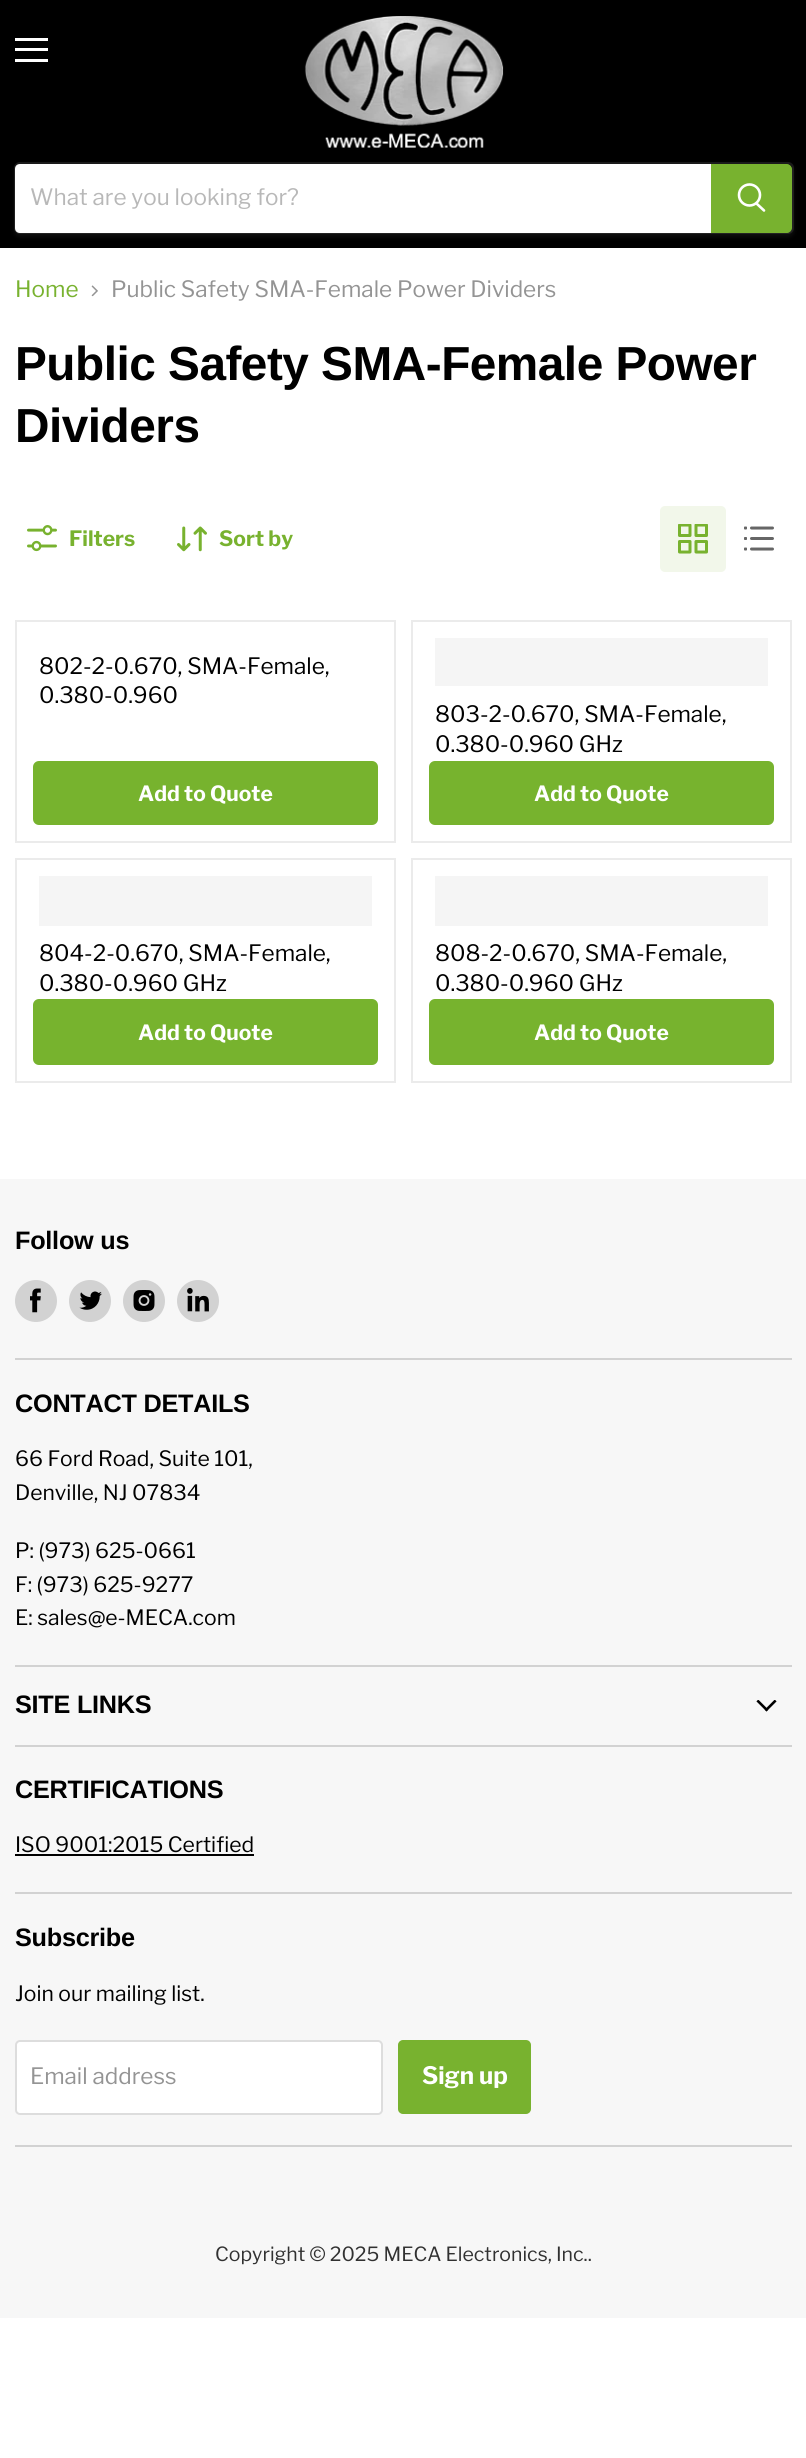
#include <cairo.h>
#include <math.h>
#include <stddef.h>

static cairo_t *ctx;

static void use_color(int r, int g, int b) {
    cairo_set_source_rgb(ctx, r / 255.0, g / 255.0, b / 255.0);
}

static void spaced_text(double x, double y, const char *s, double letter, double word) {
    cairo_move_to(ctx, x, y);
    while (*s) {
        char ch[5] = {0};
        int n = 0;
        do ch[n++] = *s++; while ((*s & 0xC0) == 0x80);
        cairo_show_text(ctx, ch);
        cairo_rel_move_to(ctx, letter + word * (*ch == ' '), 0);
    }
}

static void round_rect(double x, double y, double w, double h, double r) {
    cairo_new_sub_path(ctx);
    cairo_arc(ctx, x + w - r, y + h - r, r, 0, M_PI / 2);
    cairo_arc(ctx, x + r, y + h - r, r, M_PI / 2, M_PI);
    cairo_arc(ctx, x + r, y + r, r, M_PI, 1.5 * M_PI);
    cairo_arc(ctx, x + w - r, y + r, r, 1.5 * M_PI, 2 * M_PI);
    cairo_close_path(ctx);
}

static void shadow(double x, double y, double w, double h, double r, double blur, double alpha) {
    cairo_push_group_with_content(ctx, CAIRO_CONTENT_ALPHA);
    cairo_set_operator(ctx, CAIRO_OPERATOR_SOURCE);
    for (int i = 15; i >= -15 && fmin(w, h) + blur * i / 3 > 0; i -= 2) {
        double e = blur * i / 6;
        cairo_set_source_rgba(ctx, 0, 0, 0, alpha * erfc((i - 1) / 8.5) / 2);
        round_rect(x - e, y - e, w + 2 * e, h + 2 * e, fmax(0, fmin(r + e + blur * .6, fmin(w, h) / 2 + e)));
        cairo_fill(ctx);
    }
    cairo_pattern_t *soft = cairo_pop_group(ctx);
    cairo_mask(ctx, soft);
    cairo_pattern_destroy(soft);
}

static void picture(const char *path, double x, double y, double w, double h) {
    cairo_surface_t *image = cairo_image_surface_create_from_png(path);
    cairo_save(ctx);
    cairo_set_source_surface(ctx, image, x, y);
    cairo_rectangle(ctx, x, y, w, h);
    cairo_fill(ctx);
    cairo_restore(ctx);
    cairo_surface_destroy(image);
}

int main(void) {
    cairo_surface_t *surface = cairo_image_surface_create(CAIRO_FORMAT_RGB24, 806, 2458);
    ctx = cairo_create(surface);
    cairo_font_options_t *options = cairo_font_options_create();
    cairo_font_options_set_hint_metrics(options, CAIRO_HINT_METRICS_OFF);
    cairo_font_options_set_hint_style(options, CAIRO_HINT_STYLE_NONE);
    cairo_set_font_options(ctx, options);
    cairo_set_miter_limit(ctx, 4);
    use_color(255, 255, 255);
    cairo_paint(ctx);
    use_color(0, 0, 0);
    cairo_rectangle(ctx, 0, 0, 806, 248);
    cairo_fill(ctx);
    use_color(255, 255, 255);
    cairo_rectangle(ctx, 15, 38, 33, 3);
    cairo_fill(ctx);
    cairo_rectangle(ctx, 15, 48, 33, 3);
    cairo_fill(ctx);
    cairo_rectangle(ctx, 15, 59, 33, 3);
    cairo_fill(ctx);
    picture("img1.png", 304, 16, 200, 132);
    use_color(128, 128, 128);
    shadow(14, 165, 780, 72, 6, 2, 0.11);
    round_rect(15, 163, 778, 70, 5);
    cairo_set_source_rgba(ctx, 0.502, 0.502, 0.502, 0.2);
    cairo_stroke(ctx);
    use_color(255, 255, 255);
    cairo_new_path(ctx);
    cairo_move_to(ctx, 20, 164);
    cairo_line_to(ctx, 711, 164);
    cairo_line_to(ctx, 711, 233);
    cairo_line_to(ctx, 20, 233);
    cairo_curve_to(ctx, 17, 233, 15, 231, 15, 228);
    cairo_line_to(ctx, 15, 169);
    cairo_curve_to(ctx, 15, 166, 17, 164, 20, 164);
    cairo_close_path(ctx);
    cairo_fill(ctx);
    cairo_select_font_face(ctx, "Libre Franklin", CAIRO_FONT_SLANT_NORMAL, CAIRO_FONT_WEIGHT_NORMAL);
    cairo_set_font_size(ctx, 22.5);
    use_color(184, 184, 184);
    cairo_move_to(ctx, 30, 205);
    cairo_show_text(ctx, "What are you looking for?");
    use_color(120, 178, 47);
    cairo_new_path(ctx);
    cairo_move_to(ctx, 712, 165);
    cairo_line_to(ctx, 787, 165);
    cairo_curve_to(ctx, 789, 165, 791, 167, 791, 169);
    cairo_line_to(ctx, 791, 228);
    cairo_curve_to(ctx, 791, 230, 789, 232, 787, 232);
    cairo_line_to(ctx, 712, 232);
    cairo_close_path(ctx);
    cairo_fill_preserve(ctx);
    cairo_stroke(ctx);
    cairo_new_path(ctx);
    cairo_move_to(ctx, 764, 210.5);
    cairo_line_to(ctx, 756.5, 203.5);
    use_color(255, 255, 255);
    cairo_set_line_width(ctx, 2.6);
    cairo_set_line_cap(ctx, CAIRO_LINE_CAP_ROUND);
    cairo_stroke(ctx);
    cairo_arc(ctx, 749.5, 195, 10.5, 0, 2 * M_PI);
    cairo_set_line_cap(ctx, CAIRO_LINE_CAP_BUTT);
    cairo_stroke(ctx);
    use_color(120, 178, 47);
    cairo_move_to(ctx, 15, 297);
    cairo_show_text(ctx, "Home");
    picture("img2.png", 91, 285, 7, 12);
    use_color(148, 148, 148);
    cairo_move_to(ctx, 111, 297);
    cairo_show_text(ctx, "Public Safety SMA-Female Power Dividers");
    cairo_select_font_face(ctx, "Arimo", CAIRO_FONT_SLANT_NORMAL, CAIRO_FONT_WEIGHT_BOLD);
    cairo_set_font_size(ctx, 47.75);
    use_color(0, 0, 0);
    spaced_text(15, 380, "Public Safety SMA-Female Power", -0.5, 0);
    spaced_text(15, 442, "Dividers", -0.5, 0);
    picture("img3.png", 27, 525, 30, 27);
    cairo_select_font_face(ctx, "Libre Franklin", CAIRO_FONT_SLANT_NORMAL, CAIRO_FONT_WEIGHT_BOLD);
    cairo_set_font_size(ctx, 21.1);
    use_color(120, 178, 47);
    cairo_move_to(ctx, 69, 546);
    cairo_show_text(ctx, "Filters");
    picture("img4.png", 177, 526, 30, 26);
    cairo_move_to(ctx, 219, 546);
    cairo_show_text(ctx, "Sort by");
    use_color(242, 247, 234);
    round_rect(660, 506, 66, 66, 5);
    cairo_fill(ctx);
    picture("img5.png", 678, 524, 30, 30);
    picture("img6.png", 744, 526, 30, 25);
    cairo_rectangle(ctx, 16, 621, 379, 221);
    use_color(235, 235, 235);
    cairo_set_line_width(ctx, 2);
    cairo_stroke(ctx);
    cairo_select_font_face(ctx, "Libre Franklin", CAIRO_FONT_SLANT_NORMAL, CAIRO_FONT_WEIGHT_NORMAL);
    cairo_set_font_size(ctx, 22.5);
    use_color(0, 0, 0);
    cairo_move_to(ctx, 39, 674);
    cairo_show_text(ctx, "802-2-0.670, SMA-Female,");
    cairo_move_to(ctx, 39, 703);
    cairo_show_text(ctx, "0.380-0.960");
    use_color(119, 179, 46);
    round_rect(33, 761, 345, 64, 6);
    cairo_fill(ctx);
    cairo_select_font_face(ctx, "Libre Franklin", CAIRO_FONT_SLANT_NORMAL, CAIRO_FONT_WEIGHT_BOLD);
    cairo_set_font_size(ctx, 21);
    use_color(255, 255, 255);
    cairo_move_to(ctx, 138, 801);
    cairo_show_text(ctx, "Add to Quote");
    cairo_rectangle(ctx, 412, 621, 379, 221);
    use_color(235, 235, 235);
    cairo_stroke(ctx);
    use_color(245, 245, 245);
    cairo_rectangle(ctx, 435, 638, 333, 48);
    cairo_fill(ctx);
    cairo_select_font_face(ctx, "Libre Franklin", CAIRO_FONT_SLANT_NORMAL, CAIRO_FONT_WEIGHT_NORMAL);
    cairo_set_font_size(ctx, 22.5);
    use_color(0, 0, 0);
    cairo_move_to(ctx, 435, 722);
    cairo_show_text(ctx, "803-2-0.670, SMA-Female,");
    cairo_move_to(ctx, 435, 752);
    cairo_show_text(ctx, "0.380-0.960 GHz");
    use_color(119, 179, 46);
    round_rect(429, 761, 345, 64, 6);
    cairo_fill(ctx);
    cairo_select_font_face(ctx, "Libre Franklin", CAIRO_FONT_SLANT_NORMAL, CAIRO_FONT_WEIGHT_BOLD);
    cairo_set_font_size(ctx, 21);
    use_color(255, 255, 255);
    cairo_move_to(ctx, 534, 801);
    cairo_show_text(ctx, "Add to Quote");
    cairo_rectangle(ctx, 16, 859, 379, 223);
    use_color(235, 235, 235);
    cairo_stroke(ctx);
    use_color(245, 245, 245);
    cairo_rectangle(ctx, 39, 876, 333, 50);
    cairo_fill(ctx);
    cairo_select_font_face(ctx, "Libre Franklin", CAIRO_FONT_SLANT_NORMAL, CAIRO_FONT_WEIGHT_NORMAL);
    cairo_set_font_size(ctx, 22.5);
    use_color(0, 0, 0);
    cairo_move_to(ctx, 39, 961);
    cairo_show_text(ctx, "804-2-0.670, SMA-Female,");
    cairo_move_to(ctx, 39, 991);
    cairo_show_text(ctx, "0.380-0.960 GHz");
    use_color(119, 179, 46);
    round_rect(33, 999, 345, 66, 6);
    cairo_fill(ctx);
    cairo_select_font_face(ctx, "Libre Franklin", CAIRO_FONT_SLANT_NORMAL, CAIRO_FONT_WEIGHT_BOLD);
    cairo_set_font_size(ctx, 21);
    use_color(255, 255, 255);
    cairo_move_to(ctx, 138, 1040);
    cairo_show_text(ctx, "Add to Quote");
    cairo_rectangle(ctx, 412, 859, 379, 223);
    use_color(235, 235, 235);
    cairo_stroke(ctx);
    use_color(245, 245, 245);
    cairo_rectangle(ctx, 435, 876, 333, 50);
    cairo_fill(ctx);
    cairo_select_font_face(ctx, "Libre Franklin", CAIRO_FONT_SLANT_NORMAL, CAIRO_FONT_WEIGHT_NORMAL);
    cairo_set_font_size(ctx, 22.5);
    use_color(0, 0, 0);
    cairo_move_to(ctx, 435, 961);
    cairo_show_text(ctx, "808-2-0.670, SMA-Female,");
    cairo_move_to(ctx, 435, 991);
    cairo_show_text(ctx, "0.380-0.960 GHz");
    use_color(119, 179, 46);
    round_rect(429, 999, 345, 66, 6);
    cairo_fill(ctx);
    cairo_select_font_face(ctx, "Libre Franklin", CAIRO_FONT_SLANT_NORMAL, CAIRO_FONT_WEIGHT_BOLD);
    cairo_set_font_size(ctx, 21);
    use_color(255, 255, 255);
    cairo_move_to(ctx, 534, 1040);
    cairo_show_text(ctx, "Add to Quote");
    use_color(247, 247, 247);
    cairo_rectangle(ctx, 0, 1179, 806, 1139);
    cairo_fill(ctx);
    use_color(210, 210, 210);
    cairo_rectangle(ctx, 15, 1358, 777, 2);
    cairo_fill(ctx);
    cairo_select_font_face(ctx, "Arimo", CAIRO_FONT_SLANT_NORMAL, CAIRO_FONT_WEIGHT_BOLD);
    cairo_set_font_size(ctx, 25.25);
    use_color(0, 0, 0);
    spaced_text(15, 1249, "Follow us", -0.25, 0);
    use_color(210, 210, 210);
    cairo_new_path(ctx);
    cairo_arc(ctx, 36, 1301, 21, 0, 2 * M_PI);
    cairo_fill(ctx);
    picture("img7.png", 30, 1288, 11, 25);
    cairo_arc(ctx, 90, 1301, 21, 0, 2 * M_PI);
    cairo_fill(ctx);
    picture("img8.png", 79, 1291, 23, 19);
    cairo_arc(ctx, 144, 1301, 21, 0, 2 * M_PI);
    cairo_fill(ctx);
    picture("img9.png", 133, 1290, 22, 21);
    cairo_arc(ctx, 198, 1301, 21, 0, 2 * M_PI);
    cairo_fill(ctx);
    picture("img10.png", 187, 1287, 22, 25);
    cairo_rectangle(ctx, 15, 1665, 777, 2);
    cairo_fill(ctx);
    use_color(0, 0, 0);
    spaced_text(15, 1412, "CONTACT DETAILS", -0.25, 0);
    cairo_select_font_face(ctx, "Libre Franklin", CAIRO_FONT_SLANT_NORMAL, CAIRO_FONT_WEIGHT_NORMAL);
    cairo_set_font_size(ctx, 21.1);
    cairo_move_to(ctx, 15, 1466);
    cairo_show_text(ctx, "66 Ford Road, Suite 101,");
    cairo_move_to(ctx, 15, 1500);
    cairo_show_text(ctx, "Denville, NJ 07834");
    cairo_move_to(ctx, 15, 1558);
    cairo_show_text(ctx, "P: (973) 625-0661");
    cairo_move_to(ctx, 15, 1592);
    cairo_show_text(ctx, "F: (973) 625-9277");
    cairo_move_to(ctx, 15, 1625);
    cairo_show_text(ctx, "E: sales@e-MECA.com");
    use_color(210, 210, 210);
    cairo_rectangle(ctx, 15, 1745, 777, 2);
    cairo_fill(ctx);
    cairo_select_font_face(ctx, "Arimo", CAIRO_FONT_SLANT_NORMAL, CAIRO_FONT_WEIGHT_BOLD);
    cairo_set_font_size(ctx, 25.25);
    use_color(0, 0, 0);
    spaced_text(15, 1713, "SITE LINKS", -0.25, 0);
    picture("img11.png", 756, 1700, 21, 12);
    use_color(210, 210, 210);
    cairo_rectangle(ctx, 15, 1892, 777, 2);
    cairo_fill(ctx);
    use_color(0, 0, 0);
    spaced_text(15, 1798, "CERTIFICATIONS", -0.25, 0);
    cairo_select_font_face(ctx, "Libre Franklin", CAIRO_FONT_SLANT_NORMAL, CAIRO_FONT_WEIGHT_NORMAL);
    cairo_set_font_size(ctx, 21.1);
    cairo_move_to(ctx, 15, 1852);
    cairo_show_text(ctx, "ISO 9001:2015 Certified");
    cairo_rectangle(ctx, 15, 1854, 239, 2);
    cairo_fill(ctx);
    use_color(210, 210, 210);
    cairo_rectangle(ctx, 15, 2145, 777, 2);
    cairo_fill(ctx);
    cairo_select_font_face(ctx, "Arimo", CAIRO_FONT_SLANT_NORMAL, CAIRO_FONT_WEIGHT_BOLD);
    cairo_set_font_size(ctx, 25.25);
    use_color(0, 0, 0);
    spaced_text(15, 1946, "Subscribe", -0.25, 0);
    cairo_select_font_face(ctx, "Libre Franklin", CAIRO_FONT_SLANT_NORMAL, CAIRO_FONT_WEIGHT_NORMAL);
    cairo_set_font_size(ctx, 21.1);
    cairo_move_to(ctx, 15, 2001);
    cairo_show_text(ctx, "Join our mailing list.");
    use_color(255, 255, 255);
    round_rect(16, 2041, 366, 73, 4);
    cairo_fill_preserve(ctx);
    use_color(221, 221, 221);
    cairo_stroke(ctx);
    cairo_set_font_size(ctx, 22.5);
    use_color(148, 148, 148);
    cairo_move_to(ctx, 30, 2084);
    cairo_show_text(ctx, "Email address");
    use_color(120, 178, 47);
    round_rect(399, 2041, 131, 72, 4);
    cairo_fill_preserve(ctx);
    cairo_stroke(ctx);
    cairo_select_font_face(ctx, "Libre Franklin", CAIRO_FONT_SLANT_NORMAL, CAIRO_FONT_WEIGHT_BOLD);
    cairo_set_font_size(ctx, 24);
    use_color(255, 255, 255);
    cairo_move_to(ctx, 422, 2084);
    cairo_show_text(ctx, "Sign up");
    cairo_select_font_face(ctx, "Libre Franklin", CAIRO_FONT_SLANT_NORMAL, CAIRO_FONT_WEIGHT_NORMAL);
    cairo_set_font_size(ctx, 19.5);
    use_color(49, 49, 49);
    cairo_move_to(ctx, 215, 2261);
    cairo_show_text(ctx, "Copyright © 2025 MECA Electronics, Inc..");
    cairo_surface_write_to_png(surface, "result.png");
    cairo_font_options_destroy(options);
    cairo_destroy(ctx);
    cairo_surface_destroy(surface);
    return 0;
}
